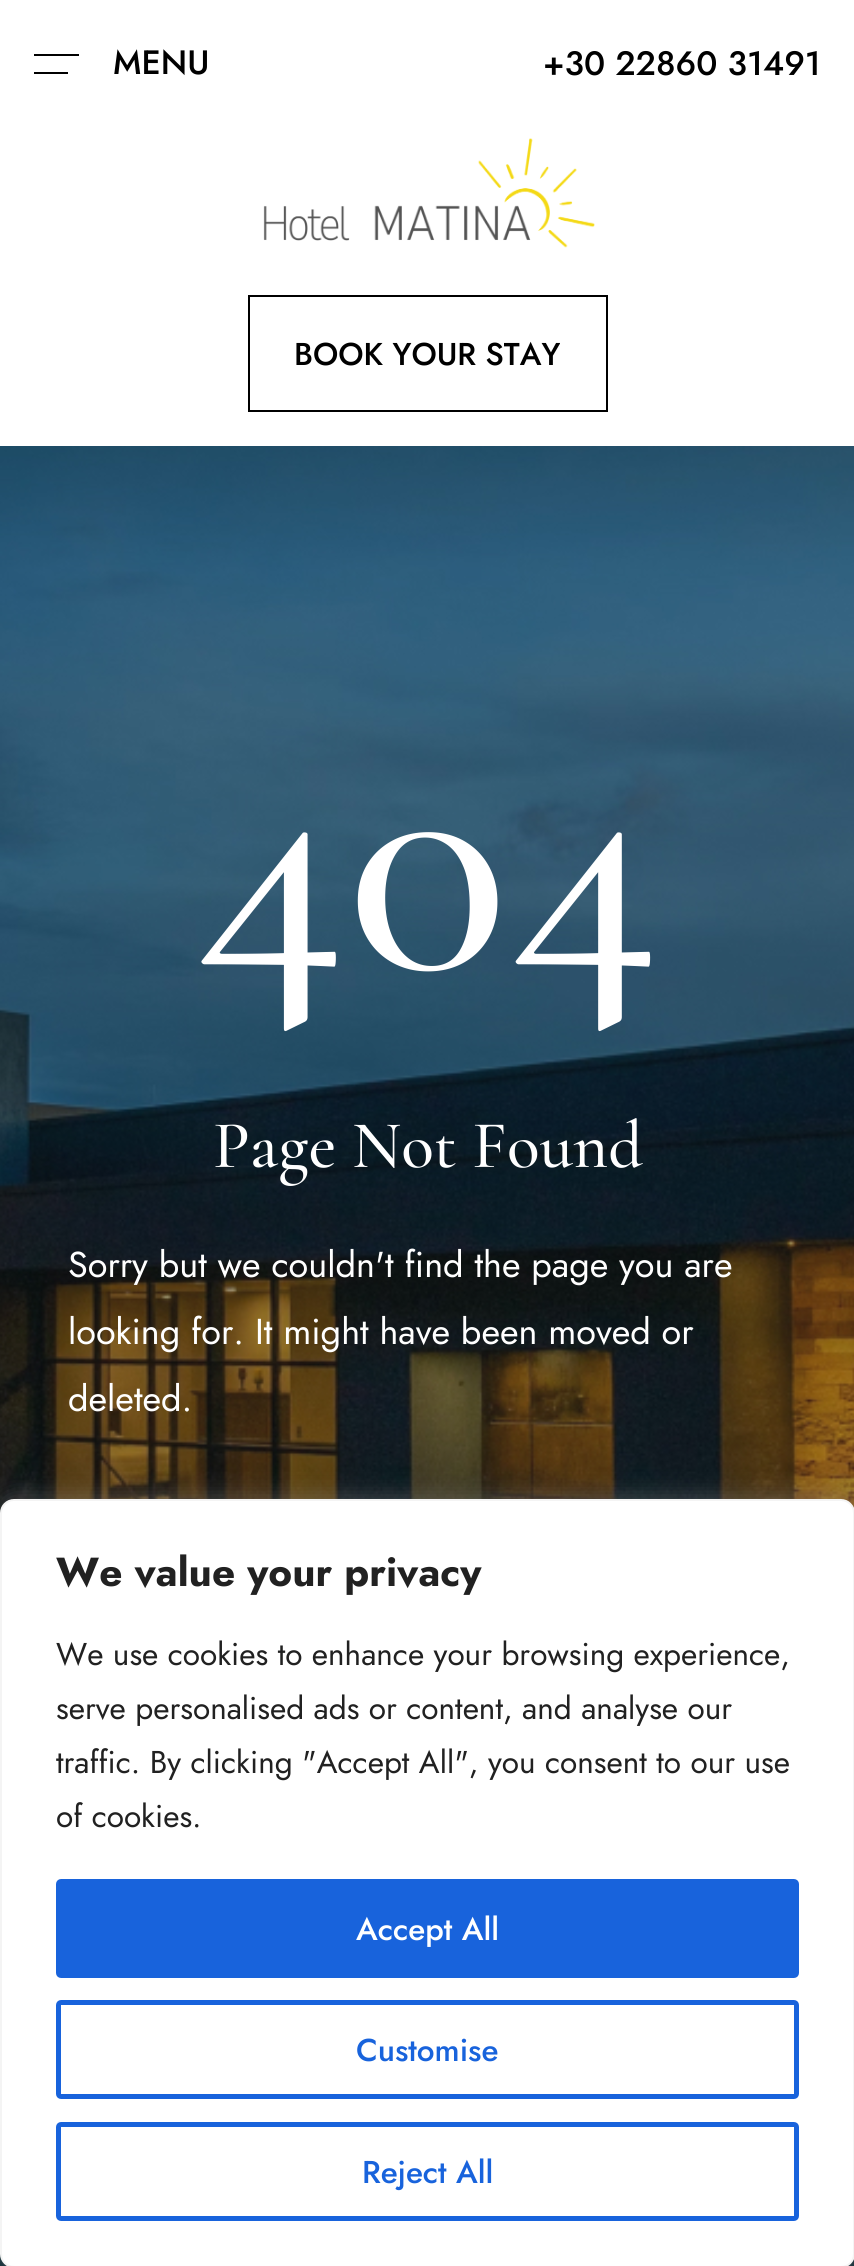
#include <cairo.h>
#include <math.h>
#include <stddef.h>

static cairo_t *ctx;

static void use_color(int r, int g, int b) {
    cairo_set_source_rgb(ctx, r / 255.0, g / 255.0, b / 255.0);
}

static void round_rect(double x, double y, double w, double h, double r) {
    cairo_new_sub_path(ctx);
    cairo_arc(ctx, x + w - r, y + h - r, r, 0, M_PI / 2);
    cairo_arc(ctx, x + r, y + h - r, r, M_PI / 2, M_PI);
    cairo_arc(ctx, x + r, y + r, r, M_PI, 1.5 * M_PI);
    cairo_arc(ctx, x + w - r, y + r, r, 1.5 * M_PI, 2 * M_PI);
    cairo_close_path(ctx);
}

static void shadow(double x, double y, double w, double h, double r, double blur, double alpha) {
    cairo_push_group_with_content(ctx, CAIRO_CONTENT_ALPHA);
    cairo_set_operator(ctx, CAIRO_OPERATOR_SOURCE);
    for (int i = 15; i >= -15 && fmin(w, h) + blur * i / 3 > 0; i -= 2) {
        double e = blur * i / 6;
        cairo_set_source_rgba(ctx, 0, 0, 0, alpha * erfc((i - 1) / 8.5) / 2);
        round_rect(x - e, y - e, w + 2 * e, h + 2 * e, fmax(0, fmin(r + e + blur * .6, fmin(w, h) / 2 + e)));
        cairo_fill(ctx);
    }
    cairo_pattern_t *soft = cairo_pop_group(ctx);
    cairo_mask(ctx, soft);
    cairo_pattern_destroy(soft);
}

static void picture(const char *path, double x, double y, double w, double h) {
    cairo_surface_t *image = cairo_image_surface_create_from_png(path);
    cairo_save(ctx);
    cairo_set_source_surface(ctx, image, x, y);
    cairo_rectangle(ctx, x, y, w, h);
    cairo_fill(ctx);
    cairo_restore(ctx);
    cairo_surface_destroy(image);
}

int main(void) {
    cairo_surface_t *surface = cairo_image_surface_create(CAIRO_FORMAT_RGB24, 854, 2266);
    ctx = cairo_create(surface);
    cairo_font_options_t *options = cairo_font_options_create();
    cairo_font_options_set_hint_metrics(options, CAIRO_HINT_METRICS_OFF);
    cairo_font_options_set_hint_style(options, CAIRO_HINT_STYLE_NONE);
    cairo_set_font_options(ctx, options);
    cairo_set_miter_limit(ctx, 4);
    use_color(255, 255, 255);
    cairo_paint(ctx);
    use_color(0, 0, 0);
    cairo_rectangle(ctx, 34, 54, 45, 2);
    cairo_fill(ctx);
    cairo_rectangle(ctx, 34, 72, 34, 2);
    cairo_fill(ctx);
    cairo_select_font_face(ctx, "Jost Medium", CAIRO_FONT_SLANT_NORMAL, CAIRO_FONT_WEIGHT_NORMAL);
    cairo_set_font_size(ctx, 33.75);
    cairo_move_to(ctx, 113, 74);
    cairo_show_text(ctx, "MENU");
    cairo_move_to(ctx, 543, 75);
    cairo_show_text(ctx, "+30 22860 31491");
    picture("img1.png", 263, 138, 332, 110);
    cairo_rectangle(ctx, 249, 296, 358, 115);
    cairo_stroke(ctx);
    cairo_set_font_size(ctx, 31.5);
    cairo_move_to(ctx, 294, 365);
    cairo_show_text(ctx, "BOOK YOUR STAY");
    picture("img2.png", 0, 446, 854, 1820);
    cairo_select_font_face(ctx, "Cormorant Garamond Medium", CAIRO_FONT_SLANT_NORMAL, CAIRO_FONT_WEIGHT_NORMAL);
    cairo_set_font_size(ctx, 338);
    use_color(255, 255, 255);
    cairo_move_to(ctx, 194, 967);
    cairo_show_text(ctx, "404");
    cairo_set_font_size(ctx, 67.5);
    cairo_move_to(ctx, 213, 1167);
    cairo_show_text(ctx, "Page Not Found");
    cairo_select_font_face(ctx, "Jost", CAIRO_FONT_SLANT_NORMAL, CAIRO_FONT_WEIGHT_NORMAL);
    cairo_set_font_size(ctx, 36);
    cairo_move_to(ctx, 68, 1277);
    cairo_show_text(ctx, "Sorry but we couldn't find the page you are");
    cairo_move_to(ctx, 68, 1344);
    cairo_show_text(ctx, "looking for. It might have been moved or");
    cairo_move_to(ctx, 68, 1411);
    cairo_show_text(ctx, "deleted.");
    use_color(172, 171, 171);
    shadow(0, 1496, 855, 770, 14, 11, 0.3);
    use_color(255, 255, 255);
    round_rect(1, 1500, 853, 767, 13);
    cairo_fill_preserve(ctx);
    use_color(244, 244, 244);
    cairo_stroke(ctx);
    cairo_select_font_face(ctx, "Jost", CAIRO_FONT_SLANT_NORMAL, CAIRO_FONT_WEIGHT_BOLD);
    cairo_set_font_size(ctx, 40.5);
    use_color(33, 33, 33);
    cairo_move_to(ctx, 56, 1586);
    cairo_show_text(ctx, "We value your privacy");
    cairo_select_font_face(ctx, "Jost", CAIRO_FONT_SLANT_NORMAL, CAIRO_FONT_WEIGHT_NORMAL);
    cairo_set_font_size(ctx, 31.5);
    cairo_move_to(ctx, 56, 1665);
    cairo_show_text(ctx, "We use cookies to enhance your browsing experience,");
    cairo_move_to(ctx, 56, 1719);
    cairo_show_text(ctx, "serve personalised ads or content, and analyse our");
    cairo_move_to(ctx, 56, 1773);
    cairo_show_text(ctx, "traffic. By clicking \"Accept All\", you consent to our use");
    cairo_move_to(ctx, 56, 1827);
    cairo_show_text(ctx, "of cookies.");
    use_color(24, 99, 220);
    round_rect(58.5, 1881.5, 738, 94, 2.5);
    cairo_fill_preserve(ctx);
    cairo_set_line_width(ctx, 5);
    cairo_stroke(ctx);
    cairo_select_font_face(ctx, "Jost Medium", CAIRO_FONT_SLANT_NORMAL, CAIRO_FONT_WEIGHT_NORMAL);
    use_color(255, 255, 255);
    cairo_move_to(ctx, 356, 1940);
    cairo_show_text(ctx, "Accept All");
    round_rect(58.5, 2002.5, 738, 94, 2.5);
    use_color(24, 99, 220);
    cairo_stroke(ctx);
    cairo_move_to(ctx, 356, 2061);
    cairo_show_text(ctx, "Customise");
    round_rect(58.5, 2124.5, 738, 94, 2.5);
    cairo_stroke(ctx);
    cairo_move_to(ctx, 362, 2183);
    cairo_show_text(ctx, "Reject All");
    cairo_surface_write_to_png(surface, "result.png");
    cairo_font_options_destroy(options);
    cairo_destroy(ctx);
    cairo_surface_destroy(surface);
    return 0;
}
